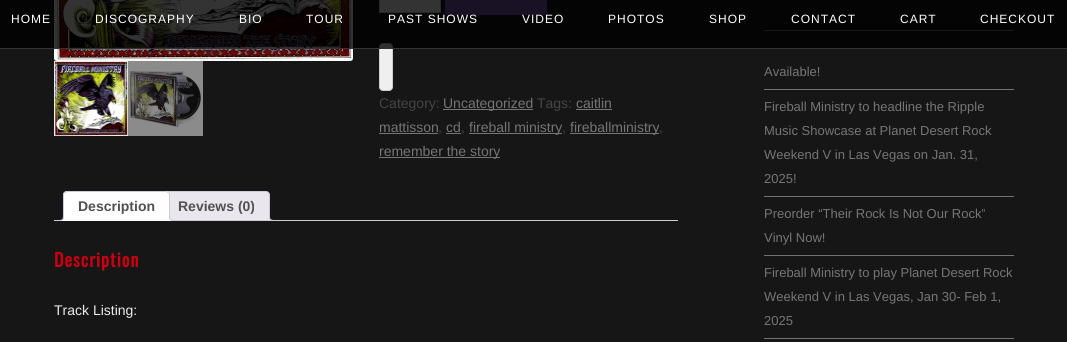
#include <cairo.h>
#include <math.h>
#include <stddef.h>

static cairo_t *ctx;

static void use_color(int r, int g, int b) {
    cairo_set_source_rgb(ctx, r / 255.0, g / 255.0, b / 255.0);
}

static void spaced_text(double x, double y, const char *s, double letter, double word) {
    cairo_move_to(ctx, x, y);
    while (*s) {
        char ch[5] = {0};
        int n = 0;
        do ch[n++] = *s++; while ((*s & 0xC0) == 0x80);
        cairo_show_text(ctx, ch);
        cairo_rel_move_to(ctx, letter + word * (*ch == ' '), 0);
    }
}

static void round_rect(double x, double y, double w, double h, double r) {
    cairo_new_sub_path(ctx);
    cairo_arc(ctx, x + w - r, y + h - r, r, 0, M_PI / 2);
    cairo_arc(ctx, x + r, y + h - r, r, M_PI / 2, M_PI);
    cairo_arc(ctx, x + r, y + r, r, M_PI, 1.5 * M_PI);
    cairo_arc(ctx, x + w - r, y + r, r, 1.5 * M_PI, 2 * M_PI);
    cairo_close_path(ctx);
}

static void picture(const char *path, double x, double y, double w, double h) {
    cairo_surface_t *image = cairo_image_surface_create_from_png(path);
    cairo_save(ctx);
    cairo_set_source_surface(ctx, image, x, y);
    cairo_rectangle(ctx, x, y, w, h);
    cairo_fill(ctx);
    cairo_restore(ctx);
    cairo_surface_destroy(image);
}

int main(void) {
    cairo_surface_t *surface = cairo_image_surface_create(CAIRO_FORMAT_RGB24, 1067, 342);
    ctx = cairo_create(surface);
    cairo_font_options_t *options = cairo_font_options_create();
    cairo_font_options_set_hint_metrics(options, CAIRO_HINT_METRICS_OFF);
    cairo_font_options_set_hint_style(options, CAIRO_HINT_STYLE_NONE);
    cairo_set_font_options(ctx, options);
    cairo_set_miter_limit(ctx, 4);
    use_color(22, 22, 22);
    cairo_paint(ctx);
    picture("img1.png", 54, 0, 299, 61);
    use_color(255, 255, 255);
    cairo_rectangle(ctx, 379.5, -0.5, 61, 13);
    cairo_fill_preserve(ctx);
    use_color(204, 204, 204);
    cairo_set_line_width(ctx, 1);
    cairo_stroke(ctx);
    use_color(127, 84, 179);
    round_rect(445, -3, 102, 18, 3);
    cairo_fill(ctx);
    use_color(239, 239, 239);
    round_rect(379.5, 43.5, 13, 47, 3.5);
    cairo_fill_preserve(ctx);
    use_color(204, 204, 204);
    cairo_stroke(ctx);
    use_color(114, 114, 114);
    cairo_rectangle(ctx, 764, 30, 250, 1);
    cairo_fill(ctx);
    cairo_set_source_rgba(ctx, 0, 0, 0, 0.8);
    cairo_rectangle(ctx, 0, 0, 1067, 48);
    cairo_fill(ctx);
    use_color(51, 51, 51);
    cairo_rectangle(ctx, 0, 48, 1067, 1);
    cairo_fill(ctx);
    cairo_select_font_face(ctx, "Liberation Sans", CAIRO_FONT_SLANT_NORMAL, CAIRO_FONT_WEIGHT_NORMAL);
    cairo_set_font_size(ctx, 12);
    use_color(255, 255, 255);
    spaced_text(11, 23, "HOME", 1, 0);
    spaced_text(95, 23, "DISCOGRAPHY", 1, 0);
    spaced_text(239, 23, "BIO", 1, 0);
    spaced_text(306, 23, "TOUR", 1, 0);
    spaced_text(388, 23, "PAST SHOWS", 1, 0);
    spaced_text(522, 23, "VIDEO", 1, 0);
    spaced_text(608, 23, "PHOTOS", 1, 0);
    spaced_text(709, 23, "SHOP", 1, 0);
    spaced_text(791, 23, "CONTACT", 1, 0);
    spaced_text(900, 23, "CART", 1, 0);
    spaced_text(980, 23, "CHECKOUT", 1, 0);
    picture("img2.png", 54, 61, 74, 75);
    picture("img3.png", 128, 61, 75, 75);
    cairo_set_font_size(ctx, 14);
    use_color(68, 68, 68);
    cairo_move_to(ctx, 379, 108);
    cairo_show_text(ctx, "Category:");
    use_color(117, 117, 117);
    cairo_rectangle(ctx, 443, 109, 90, 1);
    cairo_fill(ctx);
    cairo_move_to(ctx, 443, 108);
    cairo_show_text(ctx, "Uncategorized");
    use_color(68, 68, 68);
    cairo_move_to(ctx, 537, 108);
    cairo_show_text(ctx, "Tags:");
    use_color(117, 117, 117);
    cairo_move_to(ctx, 576, 108);
    cairo_show_text(ctx, "caitlin");
    cairo_rectangle(ctx, 576, 109, 36, 1);
    cairo_fill(ctx);
    cairo_move_to(ctx, 379, 132);
    cairo_show_text(ctx, "mattisson");
    use_color(68, 68, 68);
    cairo_move_to(ctx, 438, 132);
    cairo_show_text(ctx, ",");
    use_color(117, 117, 117);
    cairo_rectangle(ctx, 379, 133, 59, 1);
    cairo_fill(ctx);
    cairo_move_to(ctx, 446, 132);
    cairo_show_text(ctx, "cd");
    use_color(68, 68, 68);
    cairo_move_to(ctx, 461, 132);
    cairo_show_text(ctx, ",");
    use_color(117, 117, 117);
    cairo_rectangle(ctx, 446, 133, 15, 1);
    cairo_fill(ctx);
    cairo_rectangle(ctx, 469, 133, 93, 1);
    cairo_fill(ctx);
    cairo_move_to(ctx, 469, 132);
    cairo_show_text(ctx, "fireball ministry");
    use_color(68, 68, 68);
    cairo_move_to(ctx, 562, 132);
    cairo_show_text(ctx, ",");
    use_color(117, 117, 117);
    cairo_rectangle(ctx, 570, 133, 89, 1);
    cairo_fill(ctx);
    cairo_move_to(ctx, 570, 132);
    cairo_show_text(ctx, "fireballministry");
    use_color(68, 68, 68);
    cairo_move_to(ctx, 659, 132);
    cairo_show_text(ctx, ",");
    use_color(117, 117, 117);
    cairo_rectangle(ctx, 379, 157, 121, 1);
    cairo_fill(ctx);
    cairo_move_to(ctx, 379, 156);
    cairo_show_text(ctx, "remember the story");
    use_color(233, 230, 237);
    cairo_new_path(ctx);
    cairo_move_to(ctx, 167, 191.5);
    cairo_line_to(ctx, 266, 191.5);
    cairo_curve_to(ctx, 268, 191.5, 269.5, 193, 269.5, 195);
    cairo_line_to(ctx, 269.5, 220.5);
    cairo_line_to(ctx, 163.5, 220.5);
    cairo_line_to(ctx, 163.5, 195);
    cairo_curve_to(ctx, 163.5, 193, 165, 191.5, 167, 191.5);
    cairo_close_path(ctx);
    cairo_fill_preserve(ctx);
    use_color(207, 200, 216);
    cairo_stroke(ctx);
    cairo_save(ctx);
    cairo_rectangle(ctx, 54, 191, 624, 30);
    cairo_clip(ctx);
    use_color(233, 230, 237);
    cairo_new_path(ctx);
    cairo_move_to(ctx, 267, 218);
    cairo_curve_to(ctx, 267, 221.5, 268.5, 223, 272, 223);
    cairo_line_to(ctx, 272, 221);
    cairo_curve_to(ctx, 270.5, 220.5, 269.5, 219.5, 269, 218);
    cairo_close_path(ctx);
    cairo_fill(ctx);
    cairo_restore(ctx);
    cairo_set_fill_rule(ctx, CAIRO_FILL_RULE_EVEN_ODD);
    cairo_new_path(ctx);
    cairo_move_to(ctx, 269, 216);
    cairo_line_to(ctx, 274, 216);
    cairo_line_to(ctx, 274, 221);
    cairo_curve_to(ctx, 271.5, 221, 269, 220, 269, 217);
    cairo_close_path(ctx);
    cairo_move_to(ctx, 270, 216);
    cairo_line_to(ctx, 274, 216);
    cairo_line_to(ctx, 274, 220);
    cairo_curve_to(ctx, 272, 220, 270, 219.5, 270, 217);
    cairo_close_path(ctx);
    cairo_fill(ctx);
    cairo_rectangle(ctx, 54, 220, 624, 1);
    cairo_fill(ctx);
    use_color(255, 255, 255);
    cairo_new_path(ctx);
    cairo_move_to(ctx, 67, 191);
    cairo_line_to(ctx, 166, 191);
    cairo_curve_to(ctx, 168, 191, 170, 193, 170, 195);
    cairo_line_to(ctx, 170, 221);
    cairo_line_to(ctx, 63, 221);
    cairo_line_to(ctx, 63, 195);
    cairo_curve_to(ctx, 63, 193, 65, 191, 67, 191);
    cairo_close_path(ctx);
    cairo_fill(ctx);
    use_color(207, 200, 216);
    cairo_set_fill_rule(ctx, CAIRO_FILL_RULE_WINDING);
    cairo_new_path(ctx);
    cairo_move_to(ctx, 67, 191);
    cairo_line_to(ctx, 64, 192);
    cairo_line_to(ctx, 65, 193);
    cairo_line_to(ctx, 67, 192);
    cairo_line_to(ctx, 166, 192);
    cairo_line_to(ctx, 168, 193);
    cairo_line_to(ctx, 169, 192);
    cairo_line_to(ctx, 166, 191);
    cairo_close_path(ctx);
    cairo_fill(ctx);
    cairo_new_path(ctx);
    cairo_move_to(ctx, 170, 221);
    cairo_line_to(ctx, 170, 195);
    cairo_curve_to(ctx, 170, 194, 169.5, 193, 169, 192);
    cairo_line_to(ctx, 168, 193);
    cairo_curve_to(ctx, 169, 193, 169, 194, 169, 195);
    cairo_line_to(ctx, 169, 220);
    cairo_close_path(ctx);
    cairo_fill(ctx);
    use_color(255, 255, 255);
    cairo_new_path(ctx);
    cairo_move_to(ctx, 170, 221);
    cairo_line_to(ctx, 169, 220);
    cairo_line_to(ctx, 64, 220);
    cairo_line_to(ctx, 63, 221);
    cairo_close_path(ctx);
    cairo_fill(ctx);
    use_color(207, 200, 216);
    cairo_new_path(ctx);
    cairo_move_to(ctx, 63, 221);
    cairo_line_to(ctx, 64, 220);
    cairo_line_to(ctx, 64, 195);
    cairo_curve_to(ctx, 64, 194, 64, 193, 65, 193);
    cairo_line_to(ctx, 64, 192);
    cairo_curve_to(ctx, 63.5, 193, 63, 194, 63, 195);
    cairo_close_path(ctx);
    cairo_fill(ctx);
    cairo_select_font_face(ctx, "Liberation Sans", CAIRO_FONT_SLANT_NORMAL, CAIRO_FONT_WEIGHT_BOLD);
    use_color(81, 81, 81);
    cairo_move_to(ctx, 78, 211);
    cairo_show_text(ctx, "Description");
    cairo_save(ctx);
    cairo_rectangle(ctx, 54, 191, 624, 30);
    cairo_clip(ctx);
    use_color(255, 255, 255);
    cairo_new_path(ctx);
    cairo_move_to(ctx, 61, 221);
    cairo_line_to(ctx, 61, 223);
    cairo_curve_to(ctx, 64.5, 223, 66, 221.5, 66, 218);
    cairo_line_to(ctx, 64, 218);
    cairo_curve_to(ctx, 63.5, 219.5, 62.5, 220.5, 61, 221);
    cairo_close_path(ctx);
    cairo_fill(ctx);
    cairo_restore(ctx);
    use_color(207, 200, 216);
    cairo_set_fill_rule(ctx, CAIRO_FILL_RULE_EVEN_ODD);
    cairo_new_path(ctx);
    cairo_move_to(ctx, 59, 216);
    cairo_line_to(ctx, 64, 216);
    cairo_curve_to(ctx, 64, 219.5, 62.5, 221, 59, 221);
    cairo_close_path(ctx);
    cairo_move_to(ctx, 59, 216);
    cairo_line_to(ctx, 63, 216);
    cairo_curve_to(ctx, 63, 219, 62, 220, 59, 220);
    cairo_close_path(ctx);
    cairo_fill(ctx);
    cairo_save(ctx);
    cairo_set_fill_rule(ctx, CAIRO_FILL_RULE_WINDING);
    cairo_rectangle(ctx, 54, 191, 624, 30);
    cairo_clip(ctx);
    use_color(255, 255, 255);
    cairo_new_path(ctx);
    cairo_move_to(ctx, 167, 218);
    cairo_curve_to(ctx, 167, 221.5, 168.5, 223, 172, 223);
    cairo_line_to(ctx, 172, 221);
    cairo_curve_to(ctx, 170.5, 220.5, 169.5, 219.5, 169, 218);
    cairo_close_path(ctx);
    cairo_fill(ctx);
    cairo_restore(ctx);
    cairo_new_path(ctx);
    cairo_move_to(ctx, 169, 216);
    cairo_line_to(ctx, 174, 216);
    cairo_line_to(ctx, 174, 221);
    cairo_curve_to(ctx, 171.5, 221, 169, 220, 169, 217);
    cairo_close_path(ctx);
    cairo_move_to(ctx, 170, 216);
    cairo_line_to(ctx, 174, 216);
    cairo_line_to(ctx, 174, 220);
    cairo_curve_to(ctx, 172, 220, 170, 219.5, 170, 217);
    cairo_close_path(ctx);
    cairo_fill(ctx);
    use_color(81, 81, 81);
    cairo_move_to(ctx, 178, 211);
    cairo_show_text(ctx, "Reviews (0)");
    cairo_select_font_face(ctx, "Oswald", CAIRO_FONT_SLANT_NORMAL, CAIRO_FONT_WEIGHT_BOLD);
    cairo_set_font_size(ctx, 18);
    use_color(203, 0, 16);
    spaced_text(54, 267, "Description", 1, 0);
    cairo_select_font_face(ctx, "Liberation Sans", CAIRO_FONT_SLANT_NORMAL, CAIRO_FONT_WEIGHT_NORMAL);
    cairo_set_font_size(ctx, 14);
    use_color(235, 235, 235);
    cairo_move_to(ctx, 54, 315);
    cairo_show_text(ctx, "Track Listing:");
    use_color(114, 114, 114);
    cairo_rectangle(ctx, 764, 89, 250, 1);
    cairo_fill(ctx);
    cairo_set_font_size(ctx, 13);
    use_color(117, 117, 117);
    cairo_move_to(ctx, 764, 76);
    cairo_show_text(ctx, "Available!");
    use_color(114, 114, 114);
    cairo_rectangle(ctx, 764, 196, 250, 1);
    cairo_fill(ctx);
    use_color(117, 117, 117);
    cairo_move_to(ctx, 764, 111);
    cairo_show_text(ctx, "Fireball Ministry to headline the Ripple");
    cairo_move_to(ctx, 764, 135);
    cairo_show_text(ctx, "Music Showcase at Planet Desert Rock");
    cairo_move_to(ctx, 764, 159);
    cairo_show_text(ctx, "Weekend V in Las Vegas on Jan. 31,");
    cairo_move_to(ctx, 764, 183);
    cairo_show_text(ctx, "2025!");
    use_color(114, 114, 114);
    cairo_rectangle(ctx, 764, 255, 250, 1);
    cairo_fill(ctx);
    use_color(117, 117, 117);
    cairo_move_to(ctx, 764, 218);
    cairo_show_text(ctx, "Preorder “Their Rock Is Not Our Rock”");
    cairo_move_to(ctx, 764, 242);
    cairo_show_text(ctx, "Vinyl Now!");
    use_color(114, 114, 114);
    cairo_rectangle(ctx, 764, 338, 250, 1);
    cairo_fill(ctx);
    use_color(117, 117, 117);
    cairo_move_to(ctx, 764, 277);
    cairo_show_text(ctx, "Fireball Ministry to play Planet Desert Rock");
    cairo_move_to(ctx, 764, 301);
    cairo_show_text(ctx, "Weekend V in Las Vegas, Jan 30- Feb 1,");
    cairo_move_to(ctx, 764, 325);
    cairo_show_text(ctx, "2025");
    cairo_surface_write_to_png(surface, "result.png");
    cairo_font_options_destroy(options);
    cairo_destroy(ctx);
    cairo_surface_destroy(surface);
    return 0;
}
